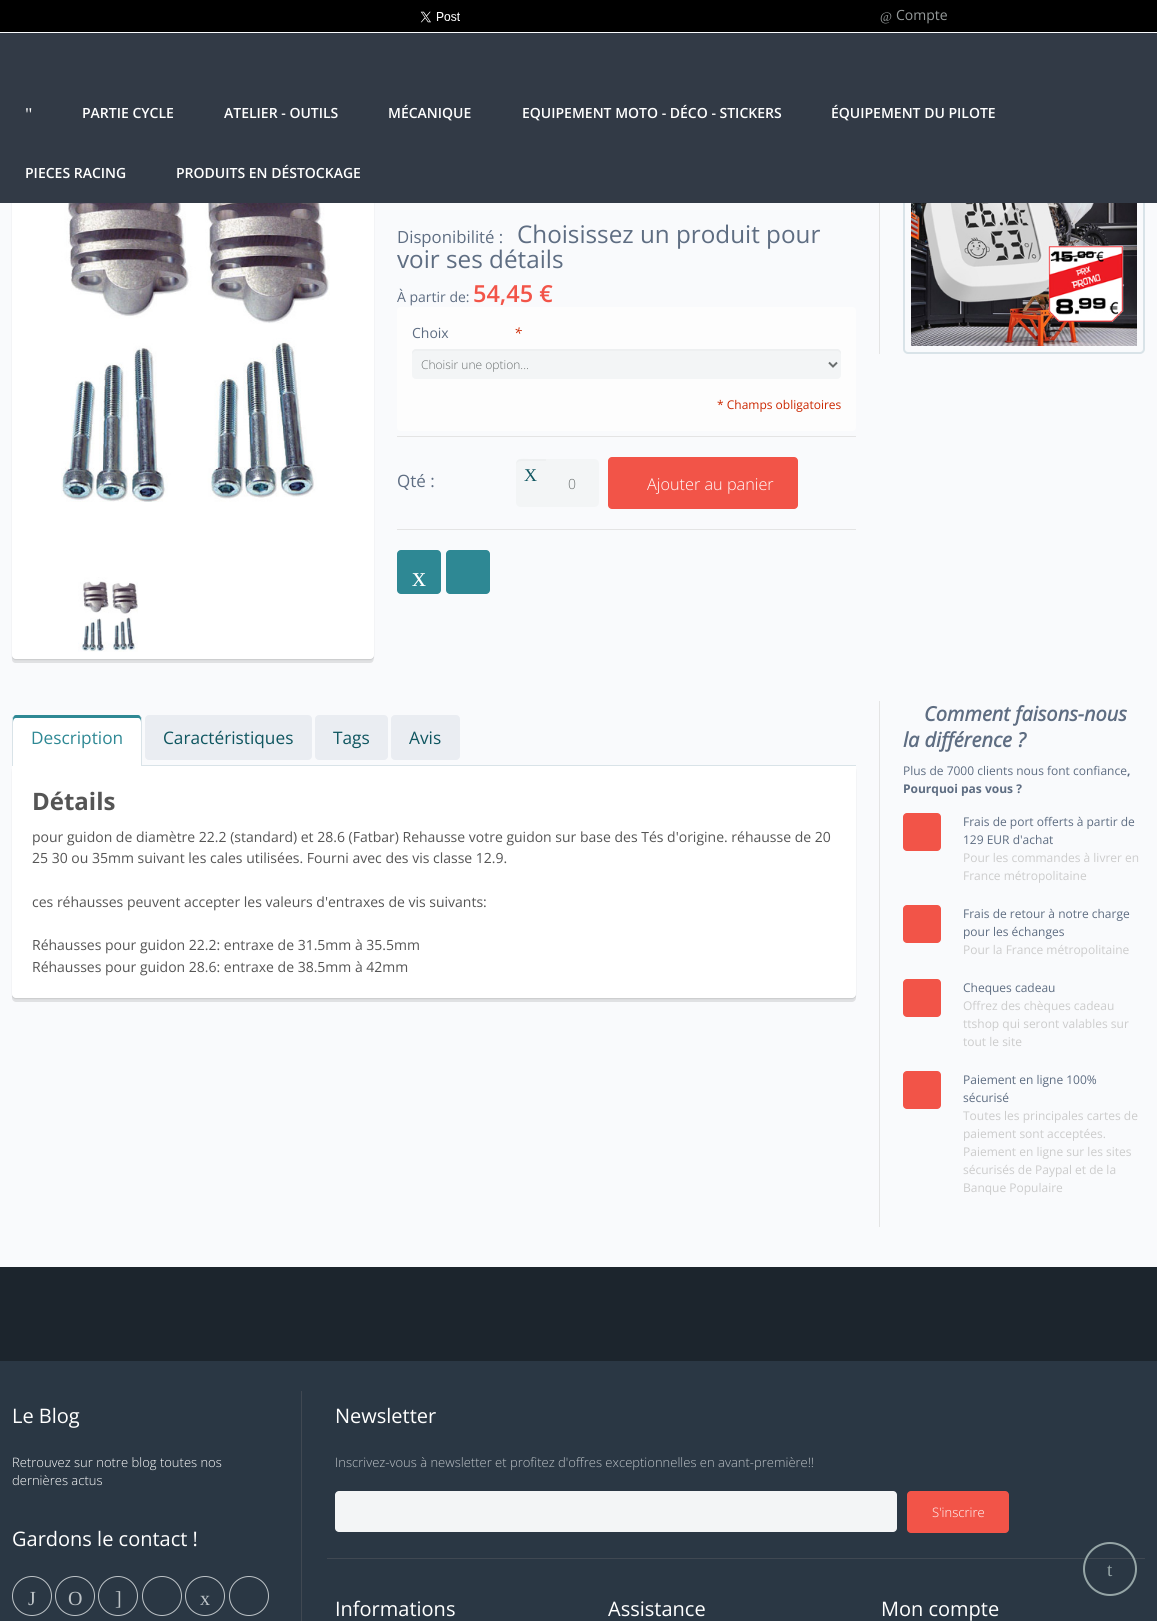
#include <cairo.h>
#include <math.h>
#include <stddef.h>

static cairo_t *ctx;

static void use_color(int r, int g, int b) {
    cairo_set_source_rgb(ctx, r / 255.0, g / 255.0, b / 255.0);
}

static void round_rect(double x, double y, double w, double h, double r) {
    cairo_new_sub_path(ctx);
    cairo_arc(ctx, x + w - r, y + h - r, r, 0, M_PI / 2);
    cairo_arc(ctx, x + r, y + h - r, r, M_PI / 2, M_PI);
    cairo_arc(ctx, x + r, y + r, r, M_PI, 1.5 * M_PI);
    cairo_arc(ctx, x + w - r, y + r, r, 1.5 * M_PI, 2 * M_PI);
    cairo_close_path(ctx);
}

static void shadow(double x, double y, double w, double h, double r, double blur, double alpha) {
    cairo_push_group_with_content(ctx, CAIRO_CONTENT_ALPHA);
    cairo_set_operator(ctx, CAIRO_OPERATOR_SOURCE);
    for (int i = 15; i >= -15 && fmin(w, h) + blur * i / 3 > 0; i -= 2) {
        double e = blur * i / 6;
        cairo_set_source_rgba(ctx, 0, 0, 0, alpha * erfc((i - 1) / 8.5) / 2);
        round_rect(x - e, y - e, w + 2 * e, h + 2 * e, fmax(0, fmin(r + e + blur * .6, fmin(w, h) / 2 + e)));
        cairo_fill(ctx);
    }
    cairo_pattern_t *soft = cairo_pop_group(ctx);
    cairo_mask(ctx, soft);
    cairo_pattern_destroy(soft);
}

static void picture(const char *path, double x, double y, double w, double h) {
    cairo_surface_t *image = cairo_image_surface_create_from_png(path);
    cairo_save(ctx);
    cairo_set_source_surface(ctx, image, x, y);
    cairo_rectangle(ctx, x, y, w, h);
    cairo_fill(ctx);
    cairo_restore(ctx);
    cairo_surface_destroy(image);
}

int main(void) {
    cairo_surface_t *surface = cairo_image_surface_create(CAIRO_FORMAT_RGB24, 1157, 1621);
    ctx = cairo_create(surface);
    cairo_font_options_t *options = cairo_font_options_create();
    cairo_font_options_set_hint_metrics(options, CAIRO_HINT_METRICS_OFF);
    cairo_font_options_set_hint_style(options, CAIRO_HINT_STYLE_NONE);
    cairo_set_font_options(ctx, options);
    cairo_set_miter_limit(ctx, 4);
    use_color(249, 250, 252);
    cairo_paint(ctx);
    use_color(0, 0, 0);
    cairo_rectangle(ctx, 0, 0, 1157, 32);
    cairo_fill(ctx);
    picture("img1.png", 420, 11, 40, 12);
    cairo_select_font_face(ctx, "Liberation Serif", CAIRO_FONT_SLANT_NORMAL, CAIRO_FONT_WEIGHT_NORMAL);
    cairo_set_font_size(ctx, 13);
    use_color(150, 155, 155);
    cairo_move_to(ctx, 880, 21);
    cairo_show_text(ctx, "@");
    cairo_select_font_face(ctx, "Open Sans", CAIRO_FONT_SLANT_NORMAL, CAIRO_FONT_WEIGHT_NORMAL);
    cairo_set_font_size(ctx, 14);
    cairo_move_to(ctx, 896, 20);
    cairo_show_text(ctx, "Compte");
    use_color(224, 225, 227);
    cairo_new_path(ctx);
    cairo_move_to(ctx, 12, 655);
    cairo_curve_to(ctx, 12, 658, 11, 662, 15, 663);
    cairo_line_to(ctx, 370, 663);
    cairo_curve_to(ctx, 374, 663, 374, 658, 374, 655);
    cairo_curve_to(ctx, 374, 657, 372, 659, 370, 659);
    cairo_line_to(ctx, 16, 659);
    cairo_curve_to(ctx, 14, 659, 12, 657, 12, 655);
    cairo_close_path(ctx);
    cairo_fill(ctx);
    use_color(0, 0, 0);
    shadow(12, 93, 362, 567, 4, 0.5, 0.1);
    use_color(255, 255, 255);
    round_rect(12, 92, 362, 567, 4);
    cairo_fill(ctx);
    picture("img4.png", 911, 203, 226, 143);
    round_rect(904, 113, 240, 240, 4);
    use_color(217, 227, 232);
    cairo_stroke(ctx);
    use_color(50, 58, 70);
    cairo_rectangle(ctx, 0, 33, 1157, 170);
    cairo_fill(ctx);
    cairo_select_font_face(ctx, "Liberation Serif", CAIRO_FONT_SLANT_NORMAL, CAIRO_FONT_WEIGHT_NORMAL);
    cairo_set_font_size(ctx, 18);
    use_color(255, 255, 255);
    cairo_move_to(ctx, 25, 120);
    cairo_show_text(ctx, "\"");
    cairo_select_font_face(ctx, "Open Sans SemiBold", CAIRO_FONT_SLANT_NORMAL, CAIRO_FONT_WEIGHT_NORMAL);
    cairo_set_font_size(ctx, 14);
    cairo_move_to(ctx, 82, 118);
    cairo_show_text(ctx, "PARTIE CYCLE");
    cairo_move_to(ctx, 224, 118);
    cairo_show_text(ctx, "ATELIER - OUTILS");
    cairo_move_to(ctx, 388, 118);
    cairo_show_text(ctx, "MÉCANIQUE");
    cairo_move_to(ctx, 522, 118);
    cairo_show_text(ctx, "EQUIPEMENT MOTO - DÉCO - STICKERS");
    cairo_move_to(ctx, 831, 118);
    cairo_show_text(ctx, "ÉQUIPEMENT DU PILOTE");
    cairo_move_to(ctx, 25, 178);
    cairo_show_text(ctx, "PIECES RACING");
    cairo_move_to(ctx, 176, 178);
    cairo_show_text(ctx, "PRODUITS EN DÉSTOCKAGE");
    picture("img2.png", 61, 203, 269, 299);
    picture("img3.png", 78, 577, 60, 75);
    cairo_select_font_face(ctx, "Open Sans", CAIRO_FONT_SLANT_NORMAL, CAIRO_FONT_WEIGHT_NORMAL);
    cairo_set_font_size(ctx, 16.75);
    use_color(94, 109, 130);
    cairo_move_to(ctx, 397, 243);
    cairo_show_text(ctx, "Disponibilité :");
    cairo_set_font_size(ctx, 24.25);
    cairo_move_to(ctx, 517, 243);
    cairo_show_text(ctx, "Choisissez un produit pour");
    cairo_move_to(ctx, 397, 268);
    cairo_show_text(ctx, "voir ses détails");
    cairo_set_font_size(ctx, 14);
    cairo_move_to(ctx, 397, 302);
    cairo_show_text(ctx, "À partir de:");
    cairo_select_font_face(ctx, "Open Sans SemiBold", CAIRO_FONT_SLANT_NORMAL, CAIRO_FONT_WEIGHT_NORMAL);
    cairo_set_font_size(ctx, 23.5);
    use_color(242, 84, 72);
    cairo_move_to(ctx, 473, 302);
    cairo_show_text(ctx, "54,45 €");
    use_color(253, 253, 253);
    round_rect(397, 307, 459, 124, 4);
    cairo_fill(ctx);
    cairo_select_font_face(ctx, "Open Sans", CAIRO_FONT_SLANT_NORMAL, CAIRO_FONT_WEIGHT_NORMAL);
    cairo_set_font_size(ctx, 14);
    use_color(94, 109, 130);
    cairo_move_to(ctx, 412, 338);
    cairo_show_text(ctx, "Choix");
    cairo_select_font_face(ctx, "Open Sans", CAIRO_FONT_SLANT_ITALIC, CAIRO_FONT_WEIGHT_NORMAL);
    use_color(203, 39, 0);
    cairo_move_to(ctx, 514, 338);
    cairo_show_text(ctx, "*");
    use_color(243, 245, 246);
    round_rect(412, 349, 429, 30, 4);
    cairo_fill(ctx);
    use_color(238, 240, 241);
    cairo_new_path(ctx);
    cairo_move_to(ctx, 416, 351);
    cairo_line_to(ctx, 837, 351);
    cairo_curve_to(ctx, 839, 351, 841, 353, 841, 355);
    cairo_line_to(ctx, 841, 353);
    cairo_curve_to(ctx, 841, 351, 839, 349, 837, 349);
    cairo_line_to(ctx, 416, 349);
    cairo_curve_to(ctx, 414, 349, 412, 351, 412, 353);
    cairo_line_to(ctx, 412, 355);
    cairo_curve_to(ctx, 412, 353, 414, 351, 416, 351);
    cairo_close_path(ctx);
    cairo_fill(ctx);
    cairo_new_path(ctx);
    cairo_move_to(ctx, 829, 362.5);
    cairo_line_to(ctx, 833, 366.5);
    cairo_line_to(ctx, 837, 362.5);
    use_color(105, 110, 110);
    cairo_stroke(ctx);
    cairo_select_font_face(ctx, "Open Sans Light", CAIRO_FONT_SLANT_NORMAL, CAIRO_FONT_WEIGHT_NORMAL);
    cairo_set_font_size(ctx, 12);
    cairo_move_to(ctx, 421, 369);
    cairo_show_text(ctx, "Choisir une option...");
    cairo_select_font_face(ctx, "Open Sans", CAIRO_FONT_SLANT_NORMAL, CAIRO_FONT_WEIGHT_NORMAL);
    use_color(203, 39, 0);
    cairo_move_to(ctx, 717, 409);
    cairo_show_text(ctx, "* Champs obligatoires");
    use_color(228, 228, 228);
    cairo_rectangle(ctx, 397, 436, 459, 1);
    cairo_fill(ctx);
    cairo_rectangle(ctx, 397, 529, 459, 1);
    cairo_fill(ctx);
    cairo_set_font_size(ctx, 17);
    use_color(94, 109, 130);
    cairo_move_to(ctx, 397, 487);
    cairo_show_text(ctx, "Qté :");
    use_color(243, 245, 246);
    cairo_new_path(ctx);
    cairo_move_to(ctx, 521, 459);
    cairo_line_to(ctx, 546, 459);
    cairo_line_to(ctx, 546, 507);
    cairo_line_to(ctx, 521, 507);
    cairo_curve_to(ctx, 518, 507, 516, 505, 516, 502);
    cairo_line_to(ctx, 516, 464);
    cairo_curve_to(ctx, 516, 461, 518, 459, 521, 459);
    cairo_close_path(ctx);
    cairo_fill(ctx);
    use_color(238, 240, 241);
    cairo_new_path(ctx);
    cairo_move_to(ctx, 521, 461);
    cairo_line_to(ctx, 546, 461);
    cairo_line_to(ctx, 546, 459);
    cairo_line_to(ctx, 529.5, 459);
    cairo_curve_to(ctx, 522, 459, 516, 457, 516, 466);
    cairo_curve_to(ctx, 516, 463, 518, 461, 521, 461);
    cairo_close_path(ctx);
    cairo_fill(ctx);
    cairo_select_font_face(ctx, "Liberation Serif", CAIRO_FONT_SLANT_NORMAL, CAIRO_FONT_WEIGHT_NORMAL);
    cairo_set_font_size(ctx, 18);
    use_color(15, 86, 96);
    cairo_move_to(ctx, 524, 481);
    cairo_show_text(ctx, "X");
    use_color(243, 245, 246);
    cairo_new_path(ctx);
    cairo_move_to(ctx, 546, 459);
    cairo_line_to(ctx, 594, 459);
    cairo_curve_to(ctx, 597, 459, 599, 461, 599, 464);
    cairo_line_to(ctx, 599, 502);
    cairo_curve_to(ctx, 599, 505, 597, 507, 594, 507);
    cairo_line_to(ctx, 546, 507);
    cairo_close_path(ctx);
    cairo_fill(ctx);
    cairo_select_font_face(ctx, "Open Sans Light", CAIRO_FONT_SLANT_NORMAL, CAIRO_FONT_WEIGHT_NORMAL);
    cairo_set_font_size(ctx, 14);
    use_color(105, 110, 110);
    cairo_move_to(ctx, 568, 489);
    cairo_show_text(ctx, "0");
    use_color(242, 84, 72);
    round_rect(608, 457, 190, 52, 4);
    cairo_fill(ctx);
    cairo_set_font_size(ctx, 16.25);
    use_color(255, 255, 255);
    cairo_move_to(ctx, 647, 490);
    cairo_show_text(ctx, "Ajouter au panier");
    use_color(46, 136, 148);
    round_rect(397, 550, 44, 44, 4);
    cairo_fill(ctx);
    cairo_select_font_face(ctx, "Liberation Serif", CAIRO_FONT_SLANT_NORMAL, CAIRO_FONT_WEIGHT_NORMAL);
    cairo_set_font_size(ctx, 28);
    use_color(255, 255, 255);
    cairo_move_to(ctx, 412, 586);
    cairo_show_text(ctx, "x");
    use_color(46, 136, 148);
    round_rect(446, 550, 44, 44, 4);
    cairo_fill(ctx);
    use_color(228, 228, 228);
    cairo_rectangle(ctx, 879, 203, 1, 151);
    cairo_fill(ctx);
    use_color(217, 227, 232);
    cairo_rectangle(ctx, 142, 765, 714, 1);
    cairo_fill(ctx);
    use_color(224, 225, 227);
    cairo_new_path(ctx);
    cairo_move_to(ctx, 12, 994);
    cairo_line_to(ctx, 12, 998);
    cairo_curve_to(ctx, 12, 1000, 14, 1002, 16, 1002);
    cairo_line_to(ctx, 852, 1002);
    cairo_curve_to(ctx, 854, 1002, 856, 1000, 856, 998);
    cairo_line_to(ctx, 856, 994);
    cairo_curve_to(ctx, 856, 996, 854, 998, 852, 998);
    cairo_line_to(ctx, 16, 998);
    cairo_curve_to(ctx, 14, 998, 12, 996, 12, 994);
    cairo_close_path(ctx);
    cairo_fill(ctx);
    use_color(0, 0, 0);
    shadow(12, 767, 844, 232, 4, 0.5, 0.1);
    use_color(255, 255, 255);
    cairo_new_path(ctx);
    cairo_move_to(ctx, 16, 715);
    cairo_line_to(ctx, 138, 715);
    cairo_curve_to(ctx, 140, 715, 142, 717, 142, 719);
    cairo_line_to(ctx, 142, 766);
    cairo_line_to(ctx, 12, 766);
    cairo_line_to(ctx, 12, 719);
    cairo_curve_to(ctx, 12, 717, 14, 715, 16, 715);
    cairo_close_path(ctx);
    cairo_fill(ctx);
    use_color(46, 136, 148);
    cairo_new_path(ctx);
    cairo_move_to(ctx, 16, 718);
    cairo_line_to(ctx, 138, 718);
    cairo_curve_to(ctx, 140, 718, 141, 720, 141, 722);
    cairo_line_to(ctx, 141, 719);
    cairo_curve_to(ctx, 141, 717, 140, 715, 138, 715);
    cairo_line_to(ctx, 16, 715);
    cairo_curve_to(ctx, 14, 715, 13, 717, 13, 719);
    cairo_line_to(ctx, 13, 722);
    cairo_curve_to(ctx, 13, 720, 14, 718, 16, 718);
    cairo_close_path(ctx);
    cairo_fill(ctx);
    use_color(217, 227, 232);
    cairo_rectangle(ctx, 141, 717, 1, 49);
    cairo_fill(ctx);
    cairo_rectangle(ctx, 12, 717, 1, 49);
    cairo_fill(ctx);
    cairo_select_font_face(ctx, "Open Sans", CAIRO_FONT_SLANT_NORMAL, CAIRO_FONT_WEIGHT_NORMAL);
    cairo_set_font_size(ctx, 17.25);
    use_color(46, 136, 148);
    cairo_move_to(ctx, 31, 744);
    cairo_show_text(ctx, "Description");
    use_color(234, 237, 242);
    round_rect(145, 715, 167, 45, 4);
    cairo_fill(ctx);
    use_color(15, 86, 96);
    cairo_move_to(ctx, 163, 744);
    cairo_show_text(ctx, "Caractéristiques");
    use_color(234, 237, 242);
    round_rect(315, 715, 73, 45, 4);
    cairo_fill(ctx);
    use_color(15, 86, 96);
    cairo_move_to(ctx, 333, 744);
    cairo_show_text(ctx, "Tags");
    use_color(234, 237, 242);
    round_rect(391, 715, 69, 45, 4);
    cairo_fill(ctx);
    use_color(15, 86, 96);
    cairo_move_to(ctx, 409, 744);
    cairo_show_text(ctx, "Avis");
    use_color(255, 255, 255);
    cairo_new_path(ctx);
    cairo_move_to(ctx, 12, 766);
    cairo_line_to(ctx, 856, 766);
    cairo_line_to(ctx, 856, 994);
    cairo_curve_to(ctx, 856, 996, 854, 998, 852, 998);
    cairo_line_to(ctx, 16, 998);
    cairo_curve_to(ctx, 14, 998, 12, 996, 12, 994);
    cairo_close_path(ctx);
    cairo_fill(ctx);
    cairo_select_font_face(ctx, "Open Sans", CAIRO_FONT_SLANT_NORMAL, CAIRO_FONT_WEIGHT_BOLD);
    cairo_set_font_size(ctx, 24);
    use_color(85, 85, 85);
    cairo_move_to(ctx, 32, 810);
    cairo_show_text(ctx, "Détails");
    cairo_select_font_face(ctx, "Open Sans", CAIRO_FONT_SLANT_NORMAL, CAIRO_FONT_WEIGHT_NORMAL);
    cairo_set_font_size(ctx, 14);
    cairo_move_to(ctx, 32, 842);
    cairo_show_text(ctx, "pour guidon de diamètre 22.2 (standard) et 28.6 (Fatbar) Rehausse votre guidon sur base des Tés d'origine. réhausse de 20");
    cairo_move_to(ctx, 32, 863);
    cairo_show_text(ctx, "25 30 ou 35mm suivant les cales utilisées. Fourni avec des vis classe 12.9.");
    cairo_move_to(ctx, 32, 907);
    cairo_show_text(ctx, "ces réhausses peuvent accepter les valeurs d'entraxes de vis suivants:");
    cairo_move_to(ctx, 32, 950);
    cairo_show_text(ctx, "Réhausses pour guidon 22.2: entraxe de 31.5mm à 35.5mm");
    cairo_move_to(ctx, 32, 972);
    cairo_show_text(ctx, "Réhausses pour guidon 28.6: entraxe de 38.5mm à 42mm");
    use_color(228, 228, 228);
    cairo_rectangle(ctx, 879, 701, 1, 526);
    cairo_fill(ctx);
    cairo_select_font_face(ctx, "Open Sans", CAIRO_FONT_SLANT_ITALIC, CAIRO_FONT_WEIGHT_BOLD);
    cairo_set_font_size(ctx, 20);
    use_color(94, 109, 130);
    cairo_move_to(ctx, 924, 721);
    cairo_show_text(ctx, "Comment faisons-nous");
    cairo_move_to(ctx, 903, 747);
    cairo_show_text(ctx, "la différence ?");
    cairo_select_font_face(ctx, "Open Sans", CAIRO_FONT_SLANT_NORMAL, CAIRO_FONT_WEIGHT_NORMAL);
    cairo_set_font_size(ctx, 12);
    cairo_move_to(ctx, 903, 775);
    cairo_show_text(ctx, "Plus de 7000 clients nous font confiance");
    cairo_select_font_face(ctx, "Open Sans", CAIRO_FONT_SLANT_NORMAL, CAIRO_FONT_WEIGHT_BOLD);
    cairo_move_to(ctx, 1127, 775);
    cairo_show_text(ctx, ",");
    cairo_move_to(ctx, 903, 793);
    cairo_show_text(ctx, "Pourquoi pas vous ?");
    use_color(242, 84, 72);
    round_rect(903, 813, 38, 38, 4);
    cairo_fill(ctx);
    cairo_select_font_face(ctx, "Open Sans", CAIRO_FONT_SLANT_NORMAL, CAIRO_FONT_WEIGHT_NORMAL);
    use_color(94, 109, 130);
    cairo_move_to(ctx, 963, 826);
    cairo_show_text(ctx, "Frais de port offerts à partir de");
    cairo_move_to(ctx, 963, 844);
    cairo_show_text(ctx, "129 EUR d'achat");
    use_color(204, 204, 204);
    cairo_move_to(ctx, 963, 862);
    cairo_show_text(ctx, "Pour les commandes à livrer en");
    cairo_move_to(ctx, 963, 880);
    cairo_show_text(ctx, "France métropolitaine");
    use_color(242, 84, 72);
    round_rect(903, 905, 38, 38, 4);
    cairo_fill(ctx);
    use_color(94, 109, 130);
    cairo_move_to(ctx, 963, 918);
    cairo_show_text(ctx, "Frais de retour à notre charge");
    cairo_move_to(ctx, 963, 936);
    cairo_show_text(ctx, "pour les échanges");
    use_color(204, 204, 204);
    cairo_move_to(ctx, 963, 954);
    cairo_show_text(ctx, "Pour la France métropolitaine");
    use_color(242, 84, 72);
    round_rect(903, 979, 38, 38, 4);
    cairo_fill(ctx);
    use_color(94, 109, 130);
    cairo_move_to(ctx, 963, 992);
    cairo_show_text(ctx, "Cheques cadeau");
    use_color(204, 204, 204);
    cairo_move_to(ctx, 963, 1010);
    cairo_show_text(ctx, "Offrez des chèques cadeau");
    cairo_move_to(ctx, 963, 1028);
    cairo_show_text(ctx, "ttshop qui seront valables sur");
    cairo_move_to(ctx, 963, 1046);
    cairo_show_text(ctx, "tout le site");
    use_color(242, 84, 72);
    round_rect(903, 1071, 38, 38, 4);
    cairo_fill(ctx);
    use_color(94, 109, 130);
    cairo_move_to(ctx, 963, 1084);
    cairo_show_text(ctx, "Paiement en ligne 100%");
    cairo_move_to(ctx, 963, 1102);
    cairo_show_text(ctx, "sécurisé");
    use_color(204, 204, 204);
    cairo_move_to(ctx, 963, 1120);
    cairo_show_text(ctx, "Toutes les principales cartes de");
    cairo_move_to(ctx, 963, 1138);
    cairo_show_text(ctx, "paiement sont acceptées.");
    cairo_move_to(ctx, 963, 1156);
    cairo_show_text(ctx, "Paiement en ligne sur les sites");
    cairo_move_to(ctx, 963, 1174);
    cairo_show_text(ctx, "sécurisés de Paypal et de la");
    cairo_move_to(ctx, 963, 1192);
    cairo_show_text(ctx, "Banque Populaire");
    use_color(42, 55, 68);
    cairo_rectangle(ctx, 0, 1361, 1157, 260);
    cairo_fill(ctx);
    use_color(28, 37, 45);
    cairo_rectangle(ctx, 0, 1267, 1157, 94);
    cairo_fill(ctx);
    cairo_set_font_size(ctx, 20);
    use_color(255, 255, 255);
    cairo_move_to(ctx, 12, 1423);
    cairo_show_text(ctx, "Le Blog");
    cairo_select_font_face(ctx, "Open Sans Light", CAIRO_FONT_SLANT_NORMAL, CAIRO_FONT_WEIGHT_NORMAL);
    cairo_set_font_size(ctx, 13);
    cairo_move_to(ctx, 12, 1467);
    cairo_show_text(ctx, "Retrouvez sur notre blog toutes nos");
    cairo_move_to(ctx, 12, 1485);
    cairo_show_text(ctx, "dernières actus");
    cairo_select_font_face(ctx, "Open Sans", CAIRO_FONT_SLANT_NORMAL, CAIRO_FONT_WEIGHT_NORMAL);
    cairo_set_font_size(ctx, 20);
    cairo_move_to(ctx, 12, 1546);
    cairo_show_text(ctx, "Gardons le contact !");
    cairo_new_path(ctx);
    cairo_arc(ctx, 32, 1596, 19.5, 0, 2 * M_PI);
    use_color(189, 195, 199);
    cairo_set_line_width(ctx, 1);
    cairo_stroke(ctx);
    cairo_select_font_face(ctx, "Liberation Serif", CAIRO_FONT_SLANT_NORMAL, CAIRO_FONT_WEIGHT_NORMAL);
    cairo_move_to(ctx, 28, 1605);
    cairo_show_text(ctx, "J");
    cairo_new_path(ctx);
    cairo_arc(ctx, 75, 1596, 19.5, 0, 2 * M_PI);
    cairo_stroke(ctx);
    cairo_move_to(ctx, 68, 1605);
    cairo_show_text(ctx, "O");
    cairo_new_path(ctx);
    cairo_arc(ctx, 118, 1596, 19.5, 0, 2 * M_PI);
    cairo_stroke(ctx);
    cairo_move_to(ctx, 115, 1605);
    cairo_show_text(ctx, "]");
    cairo_new_path(ctx);
    cairo_arc(ctx, 162, 1596, 19.5, 0, 2 * M_PI);
    cairo_stroke(ctx);
    cairo_arc(ctx, 205, 1596, 19.5, 0, 2 * M_PI);
    cairo_stroke(ctx);
    cairo_move_to(ctx, 200, 1605);
    cairo_show_text(ctx, "x");
    cairo_new_path(ctx);
    cairo_arc(ctx, 249, 1596, 19.5, 0, 2 * M_PI);
    cairo_stroke(ctx);
    use_color(64, 72, 82);
    cairo_rectangle(ctx, 301, 1391, 1, 230);
    cairo_fill(ctx);
    cairo_rectangle(ctx, 327, 1558, 818, 1);
    cairo_fill(ctx);
    cairo_select_font_face(ctx, "Open Sans", CAIRO_FONT_SLANT_NORMAL, CAIRO_FONT_WEIGHT_NORMAL);
    use_color(255, 255, 255);
    cairo_move_to(ctx, 335, 1423);
    cairo_show_text(ctx, "Newsletter");
    cairo_select_font_face(ctx, "Open Sans Light", CAIRO_FONT_SLANT_NORMAL, CAIRO_FONT_WEIGHT_NORMAL);
    cairo_set_font_size(ctx, 13);
    use_color(189, 195, 199);
    cairo_move_to(ctx, 335, 1467);
    cairo_show_text(ctx, "Inscrivez-vous à newsletter et profitez d'offres exceptionnelles en avant-première!!");
    use_color(243, 245, 246);
    round_rect(335, 1491, 562, 41, 4);
    cairo_fill(ctx);
    use_color(242, 84, 72);
    round_rect(907, 1491, 102, 42, 4);
    cairo_fill(ctx);
    use_color(255, 255, 255);
    cairo_move_to(ctx, 932, 1517);
    cairo_show_text(ctx, "S'inscrire");
    cairo_select_font_face(ctx, "Open Sans", CAIRO_FONT_SLANT_NORMAL, CAIRO_FONT_WEIGHT_NORMAL);
    cairo_set_font_size(ctx, 20);
    cairo_move_to(ctx, 335, 1616);
    cairo_show_text(ctx, "Informations");
    cairo_move_to(ctx, 608, 1616);
    cairo_show_text(ctx, "Assistance");
    cairo_move_to(ctx, 881, 1616);
    cairo_show_text(ctx, "Mon compte");
    cairo_new_path(ctx);
    cairo_arc(ctx, 1110, 1569, 26, 0, 2 * M_PI);
    use_color(149, 165, 166);
    cairo_set_line_width(ctx, 2);
    cairo_stroke(ctx);
    cairo_select_font_face(ctx, "Liberation Serif", CAIRO_FONT_SLANT_NORMAL, CAIRO_FONT_WEIGHT_NORMAL);
    cairo_set_font_size(ctx, 19);
    cairo_move_to(ctx, 1107, 1576);
    cairo_show_text(ctx, "t");
    cairo_surface_write_to_png(surface, "result.png");
    cairo_font_options_destroy(options);
    cairo_destroy(ctx);
    cairo_surface_destroy(surface);
    return 0;
}
